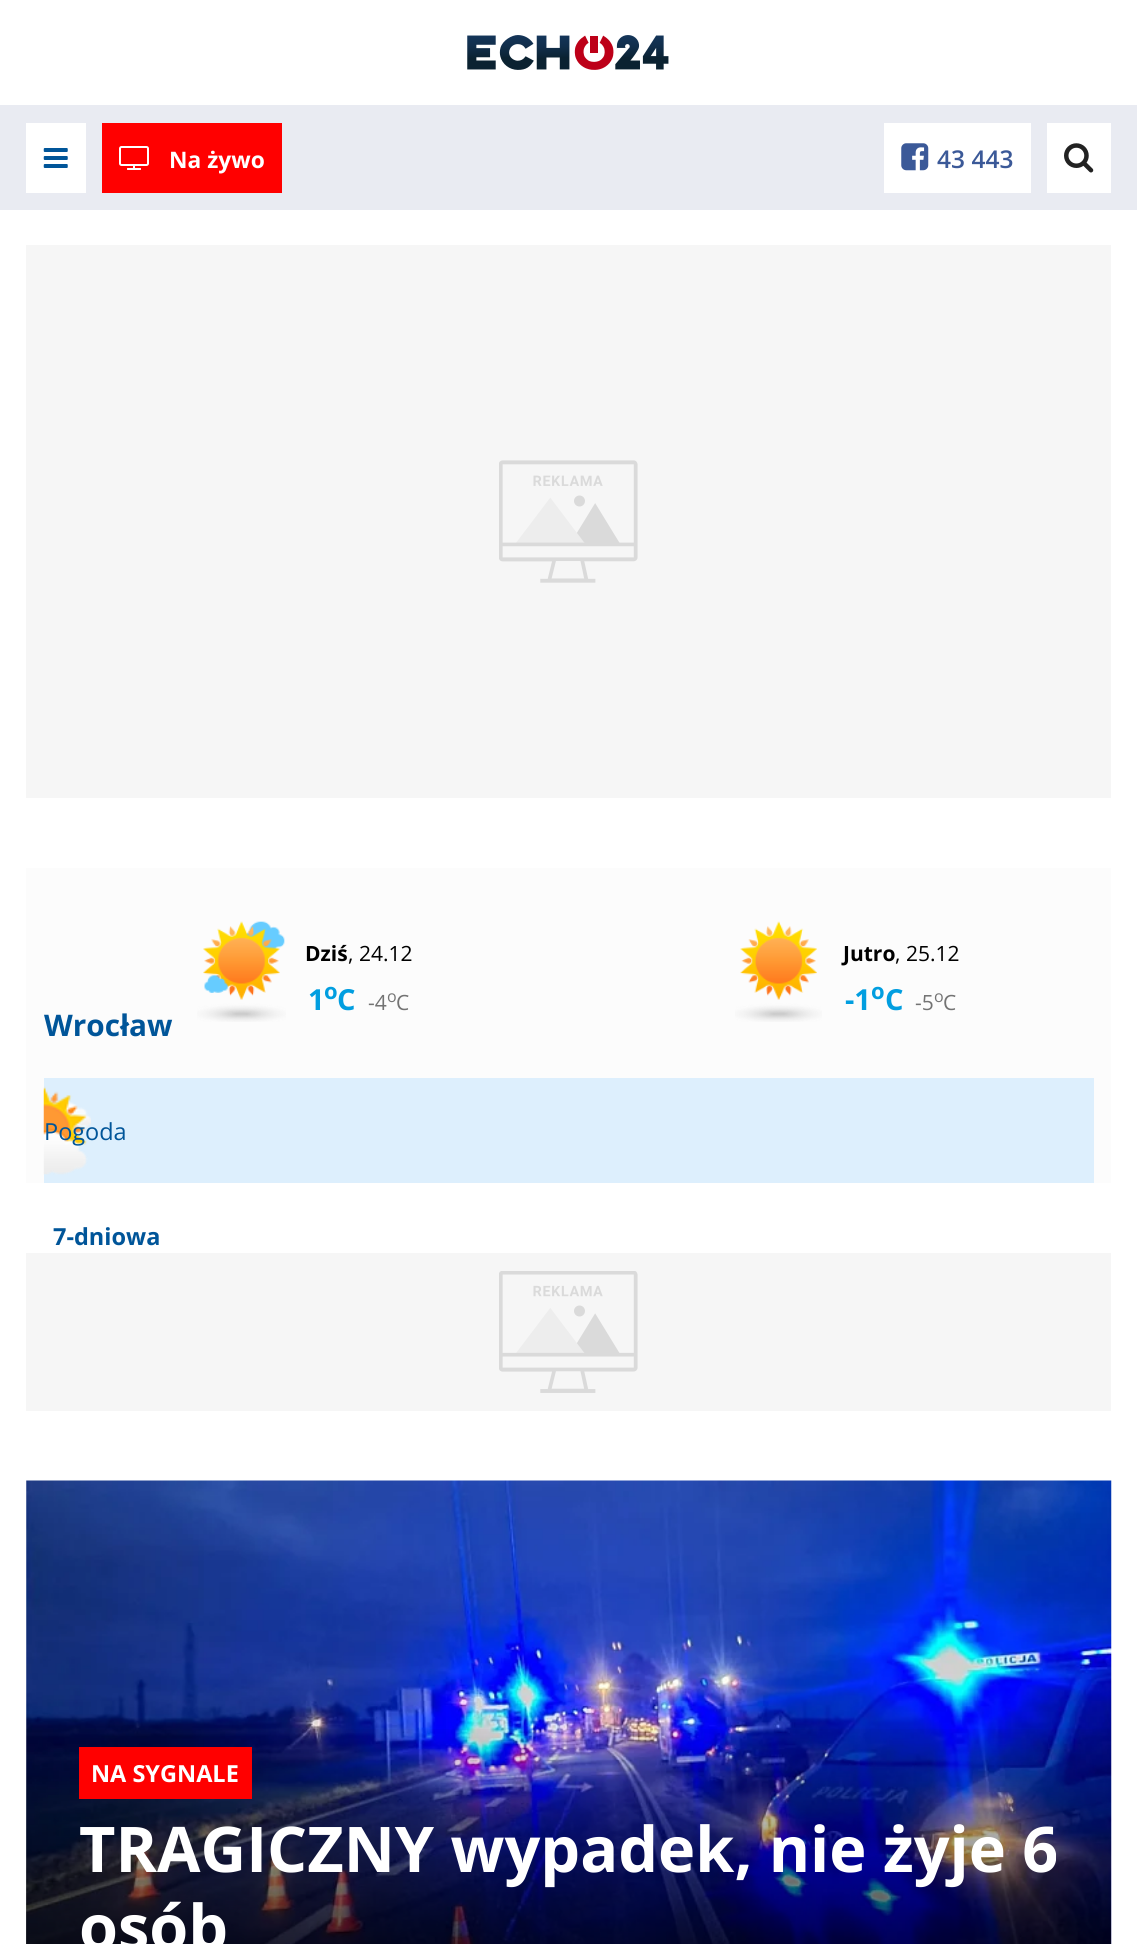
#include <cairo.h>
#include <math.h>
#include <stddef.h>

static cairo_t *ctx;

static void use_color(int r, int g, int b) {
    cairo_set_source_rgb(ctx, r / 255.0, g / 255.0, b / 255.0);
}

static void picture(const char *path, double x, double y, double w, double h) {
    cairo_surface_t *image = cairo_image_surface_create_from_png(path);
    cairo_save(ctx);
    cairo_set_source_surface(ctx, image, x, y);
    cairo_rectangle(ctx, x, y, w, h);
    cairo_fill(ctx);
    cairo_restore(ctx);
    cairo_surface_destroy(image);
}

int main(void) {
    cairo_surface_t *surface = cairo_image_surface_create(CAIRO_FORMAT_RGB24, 1137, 1944);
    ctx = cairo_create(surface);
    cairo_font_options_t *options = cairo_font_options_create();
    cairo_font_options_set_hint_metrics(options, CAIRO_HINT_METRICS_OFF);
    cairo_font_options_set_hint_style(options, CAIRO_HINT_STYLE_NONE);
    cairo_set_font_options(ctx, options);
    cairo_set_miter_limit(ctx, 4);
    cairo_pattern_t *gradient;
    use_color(255, 255, 255);
    cairo_paint(ctx);
    picture("img1.png", 467, 35, 202, 35);
    use_color(233, 235, 242);
    cairo_rectangle(ctx, 0, 105, 1137, 105);
    cairo_fill(ctx);
    use_color(255, 255, 255);
    cairo_rectangle(ctx, 26, 123, 60, 70);
    cairo_fill(ctx);
    picture("img2.png", 43, 148, 25, 20);
    use_color(255, 0, 0);
    cairo_rectangle(ctx, 102, 123, 180, 70);
    cairo_fill(ctx);
    picture("img3.png", 119, 146, 30, 24);
    cairo_select_font_face(ctx, "Open Sans", CAIRO_FONT_SLANT_NORMAL, CAIRO_FONT_WEIGHT_BOLD);
    cairo_set_font_size(ctx, 22.75);
    use_color(255, 255, 255);
    cairo_move_to(ctx, 169, 168);
    cairo_show_text(ctx, "Na żywo");
    cairo_rectangle(ctx, 884, 123, 147, 70);
    cairo_fill(ctx);
    picture("img4.png", 901, 143, 28, 28);
    cairo_select_font_face(ctx, "Open Sans SemiBold", CAIRO_FONT_SLANT_NORMAL, CAIRO_FONT_WEIGHT_NORMAL);
    cairo_set_font_size(ctx, 24.5);
    use_color(59, 89, 152);
    cairo_move_to(ctx, 937, 168);
    cairo_show_text(ctx, "43 443");
    use_color(255, 255, 255);
    cairo_rectangle(ctx, 1047, 123, 64, 70);
    cairo_fill(ctx);
    picture("img5.png", 1064, 143, 30, 30);
    use_color(246, 246, 246);
    cairo_rectangle(ctx, 26, 245, 1085, 553);
    cairo_fill(ctx);
    picture("img6.png", 499, 460, 139, 123);
    use_color(252, 252, 252);
    cairo_rectangle(ctx, 26, 868, 1085, 315);
    cairo_fill(ctx);
    picture("img7.png", 197, 921, 89, 101);
    cairo_select_font_face(ctx, "Open Sans", CAIRO_FONT_SLANT_NORMAL, CAIRO_FONT_WEIGHT_BOLD);
    cairo_set_font_size(ctx, 21);
    use_color(0, 0, 0);
    cairo_move_to(ctx, 305, 961);
    cairo_show_text(ctx, "Dziś");
    cairo_select_font_face(ctx, "Open Sans", CAIRO_FONT_SLANT_NORMAL, CAIRO_FONT_WEIGHT_NORMAL);
    cairo_move_to(ctx, 348, 961);
    cairo_show_text(ctx, ", 24.12");
    cairo_select_font_face(ctx, "Open Sans", CAIRO_FONT_SLANT_NORMAL, CAIRO_FONT_WEIGHT_BOLD);
    cairo_set_font_size(ctx, 29);
    use_color(1, 158, 224);
    cairo_move_to(ctx, 308, 1010);
    cairo_show_text(ctx, "1");
    cairo_set_font_size(ctx, 22);
    cairo_move_to(ctx, 324, 999);
    cairo_show_text(ctx, "o");
    cairo_set_font_size(ctx, 29);
    cairo_move_to(ctx, 337, 1010);
    cairo_show_text(ctx, "C");
    cairo_select_font_face(ctx, "Open Sans", CAIRO_FONT_SLANT_NORMAL, CAIRO_FONT_WEIGHT_NORMAL);
    cairo_set_font_size(ctx, 21);
    use_color(115, 115, 115);
    cairo_move_to(ctx, 368, 1010);
    cairo_show_text(ctx, "-4");
    cairo_set_font_size(ctx, 16);
    cairo_move_to(ctx, 387, 1002);
    cairo_show_text(ctx, "o");
    cairo_set_font_size(ctx, 21);
    cairo_move_to(ctx, 396, 1010);
    cairo_show_text(ctx, "C");
    picture("img8.png", 735, 921, 87, 101);
    cairo_select_font_face(ctx, "Open Sans", CAIRO_FONT_SLANT_NORMAL, CAIRO_FONT_WEIGHT_BOLD);
    use_color(0, 0, 0);
    cairo_move_to(ctx, 843, 961);
    cairo_show_text(ctx, "Jutro");
    cairo_select_font_face(ctx, "Open Sans", CAIRO_FONT_SLANT_NORMAL, CAIRO_FONT_WEIGHT_NORMAL);
    cairo_move_to(ctx, 895, 961);
    cairo_show_text(ctx, ", 25.12");
    cairo_select_font_face(ctx, "Open Sans", CAIRO_FONT_SLANT_NORMAL, CAIRO_FONT_WEIGHT_BOLD);
    cairo_set_font_size(ctx, 29);
    use_color(1, 158, 224);
    cairo_move_to(ctx, 845, 1010);
    cairo_show_text(ctx, "-1");
    cairo_set_font_size(ctx, 22);
    cairo_move_to(ctx, 871, 999);
    cairo_show_text(ctx, "o");
    cairo_set_font_size(ctx, 29);
    cairo_move_to(ctx, 885, 1010);
    cairo_show_text(ctx, "C");
    cairo_select_font_face(ctx, "Open Sans", CAIRO_FONT_SLANT_NORMAL, CAIRO_FONT_WEIGHT_NORMAL);
    cairo_set_font_size(ctx, 21);
    use_color(115, 115, 115);
    cairo_move_to(ctx, 915, 1010);
    cairo_show_text(ctx, "-5");
    cairo_set_font_size(ctx, 16);
    cairo_move_to(ctx, 934, 1002);
    cairo_show_text(ctx, "o");
    cairo_set_font_size(ctx, 21);
    cairo_move_to(ctx, 943, 1010);
    cairo_show_text(ctx, "C");
    use_color(221, 239, 253);
    cairo_rectangle(ctx, 44, 1078, 1050, 105);
    cairo_fill(ctx);
    picture("img9.png", 43, 1086, 48, 89);
    cairo_select_font_face(ctx, "Open Sans", CAIRO_FONT_SLANT_NORMAL, CAIRO_FONT_WEIGHT_BOLD);
    cairo_set_font_size(ctx, 29.75);
    use_color(0, 85, 153);
    cairo_move_to(ctx, 44, 1036);
    cairo_show_text(ctx, "Wrocław");
    cairo_select_font_face(ctx, "Open Sans", CAIRO_FONT_SLANT_NORMAL, CAIRO_FONT_WEIGHT_NORMAL);
    cairo_set_font_size(ctx, 23.5);
    cairo_move_to(ctx, 44, 1140);
    cairo_show_text(ctx, "Pogoda");
    cairo_select_font_face(ctx, "Open Sans", CAIRO_FONT_SLANT_NORMAL, CAIRO_FONT_WEIGHT_BOLD);
    cairo_move_to(ctx, 53, 1245);
    cairo_show_text(ctx, "7-dniowa");
    use_color(246, 246, 246);
    cairo_rectangle(ctx, 26, 1253, 1085, 158);
    cairo_fill(ctx);
    picture("img10.png", 499, 1271, 139, 122);
    picture("img11.png", 26, 1480, 1086, 464);
    gradient = cairo_pattern_create_linear(569, 1722, 569, 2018);
    cairo_pattern_add_color_stop_rgba(gradient, 0, 0, 0, 0, 0);
    cairo_pattern_add_color_stop_rgba(gradient, 1, 0, 0, 0, 0.87);
    cairo_set_source(ctx, gradient);
    cairo_pattern_destroy(gradient);
    cairo_rectangle(ctx, 26, 1729, 1085, 215);
    cairo_fill(ctx);
    use_color(255, 0, 0);
    cairo_rectangle(ctx, 79, 1747, 173, 52);
    cairo_fill(ctx);
    use_color(255, 255, 255);
    cairo_move_to(ctx, 91, 1782);
    cairo_show_text(ctx, "NA SYGNALE");
    cairo_set_font_size(ctx, 63);
    cairo_move_to(ctx, 79, 1872);
    cairo_show_text(ctx, "TRAGICZNY wypadek, nie żyje 6");
    cairo_move_to(ctx, 79, 1950);
    cairo_show_text(ctx, "osób");
    cairo_surface_write_to_png(surface, "result.png");
    cairo_font_options_destroy(options);
    cairo_destroy(ctx);
    cairo_surface_destroy(surface);
    return 0;
}
